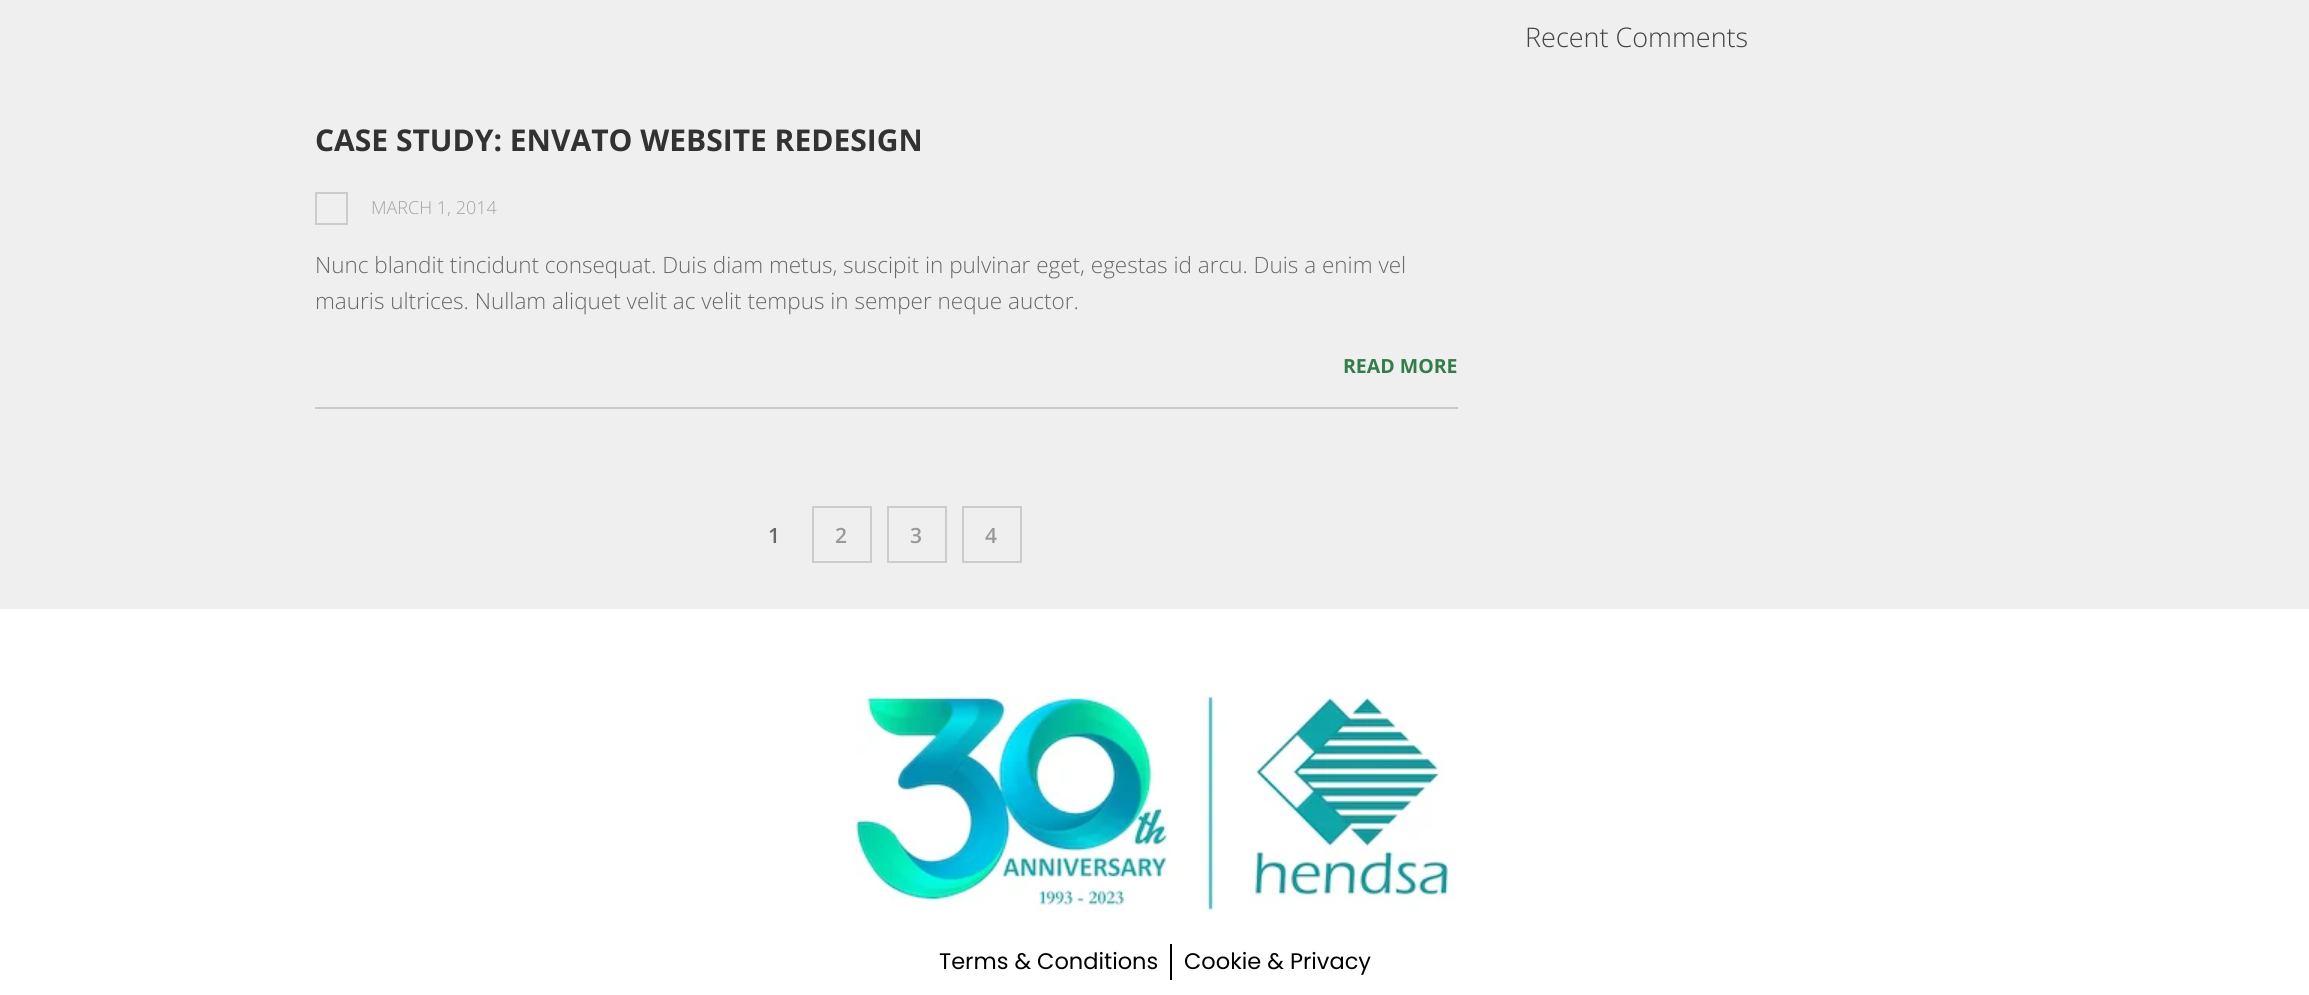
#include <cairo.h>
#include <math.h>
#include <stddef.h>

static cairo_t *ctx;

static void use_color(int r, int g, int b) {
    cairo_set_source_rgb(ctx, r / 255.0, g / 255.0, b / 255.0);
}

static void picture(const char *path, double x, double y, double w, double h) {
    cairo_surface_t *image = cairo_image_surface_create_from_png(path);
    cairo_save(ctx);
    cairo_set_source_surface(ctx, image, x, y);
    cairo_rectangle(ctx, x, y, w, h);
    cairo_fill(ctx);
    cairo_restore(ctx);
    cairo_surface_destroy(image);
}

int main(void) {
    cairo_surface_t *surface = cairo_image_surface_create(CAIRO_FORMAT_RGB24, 2309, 995);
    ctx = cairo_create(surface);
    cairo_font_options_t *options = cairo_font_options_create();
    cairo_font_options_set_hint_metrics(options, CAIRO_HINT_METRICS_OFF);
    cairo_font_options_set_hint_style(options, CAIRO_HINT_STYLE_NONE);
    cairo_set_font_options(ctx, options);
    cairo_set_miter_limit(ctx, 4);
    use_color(239, 239, 239);
    cairo_paint(ctx);
    cairo_select_font_face(ctx, "Open Sans Light", CAIRO_FONT_SLANT_NORMAL, CAIRO_FONT_WEIGHT_NORMAL);
    cairo_set_font_size(ctx, 27);
    use_color(68, 68, 68);
    cairo_move_to(ctx, 1525, 47);
    cairo_show_text(ctx, "Recent Comments");
    use_color(202, 202, 202);
    cairo_rectangle(ctx, 315, 407, 1143, 2);
    cairo_fill(ctx);
    cairo_select_font_face(ctx, "Open Sans", CAIRO_FONT_SLANT_NORMAL, CAIRO_FONT_WEIGHT_BOLD);
    cairo_set_font_size(ctx, 30);
    use_color(50, 50, 50);
    cairo_move_to(ctx, 315, 151);
    cairo_show_text(ctx, "CASE STUDY: ENVATO WEBSITE REDESIGN");
    cairo_rectangle(ctx, 316, 193, 31, 31);
    use_color(204, 204, 204);
    cairo_stroke(ctx);
    cairo_select_font_face(ctx, "Open Sans Light", CAIRO_FONT_SLANT_NORMAL, CAIRO_FONT_WEIGHT_NORMAL);
    cairo_set_font_size(ctx, 18);
    use_color(163, 162, 162);
    cairo_move_to(ctx, 371, 214);
    cairo_show_text(ctx, "MARCH 1, 2014");
    cairo_set_font_size(ctx, 22.5);
    use_color(104, 104, 104);
    cairo_move_to(ctx, 315, 273);
    cairo_show_text(ctx, "Nunc blandit tincidunt consequat. Duis diam metus, suscipit in pulvinar eget, egestas id arcu. Duis a enim vel");
    cairo_move_to(ctx, 315, 309);
    cairo_show_text(ctx, "mauris ultrices. Nullam aliquet velit ac velit tempus in semper neque auctor.");
    cairo_select_font_face(ctx, "Open Sans", CAIRO_FONT_SLANT_NORMAL, CAIRO_FONT_WEIGHT_BOLD);
    cairo_set_font_size(ctx, 19.5);
    use_color(51, 125, 73);
    cairo_move_to(ctx, 1343, 373);
    cairo_show_text(ctx, "READ MORE");
    cairo_select_font_face(ctx, "Open Sans SemiBold", CAIRO_FONT_SLANT_NORMAL, CAIRO_FONT_WEIGHT_NORMAL);
    cairo_set_font_size(ctx, 21);
    use_color(104, 104, 104);
    cairo_move_to(ctx, 768, 543);
    cairo_show_text(ctx, "1");
    cairo_rectangle(ctx, 813, 507, 58, 55);
    use_color(204, 204, 204);
    cairo_stroke(ctx);
    use_color(153, 153, 153);
    cairo_move_to(ctx, 835, 543);
    cairo_show_text(ctx, "2");
    cairo_rectangle(ctx, 888, 507, 58, 55);
    use_color(204, 204, 204);
    cairo_stroke(ctx);
    use_color(153, 153, 153);
    cairo_move_to(ctx, 910, 543);
    cairo_show_text(ctx, "3");
    cairo_rectangle(ctx, 963, 507, 58, 55);
    use_color(204, 204, 204);
    cairo_stroke(ctx);
    use_color(153, 153, 153);
    cairo_move_to(ctx, 985, 543);
    cairo_show_text(ctx, "4");
    use_color(255, 255, 255);
    cairo_rectangle(ctx, 0, 609, 2309, 386);
    cairo_fill(ctx);
    picture("img1.png", 855, 695, 600, 217);
    cairo_select_font_face(ctx, "Poppins", CAIRO_FONT_SLANT_NORMAL, CAIRO_FONT_WEIGHT_NORMAL);
    cairo_set_font_size(ctx, 22.5);
    use_color(0, 0, 0);
    cairo_move_to(ctx, 939, 969);
    cairo_show_text(ctx, "Terms & Conditions");
    cairo_rectangle(ctx, 1170, 944, 2, 36);
    cairo_fill(ctx);
    cairo_move_to(ctx, 1184, 969);
    cairo_show_text(ctx, "Cookie & Privacy");
    cairo_surface_write_to_png(surface, "result.png");
    cairo_font_options_destroy(options);
    cairo_destroy(ctx);
    cairo_surface_destroy(surface);
    return 0;
}
